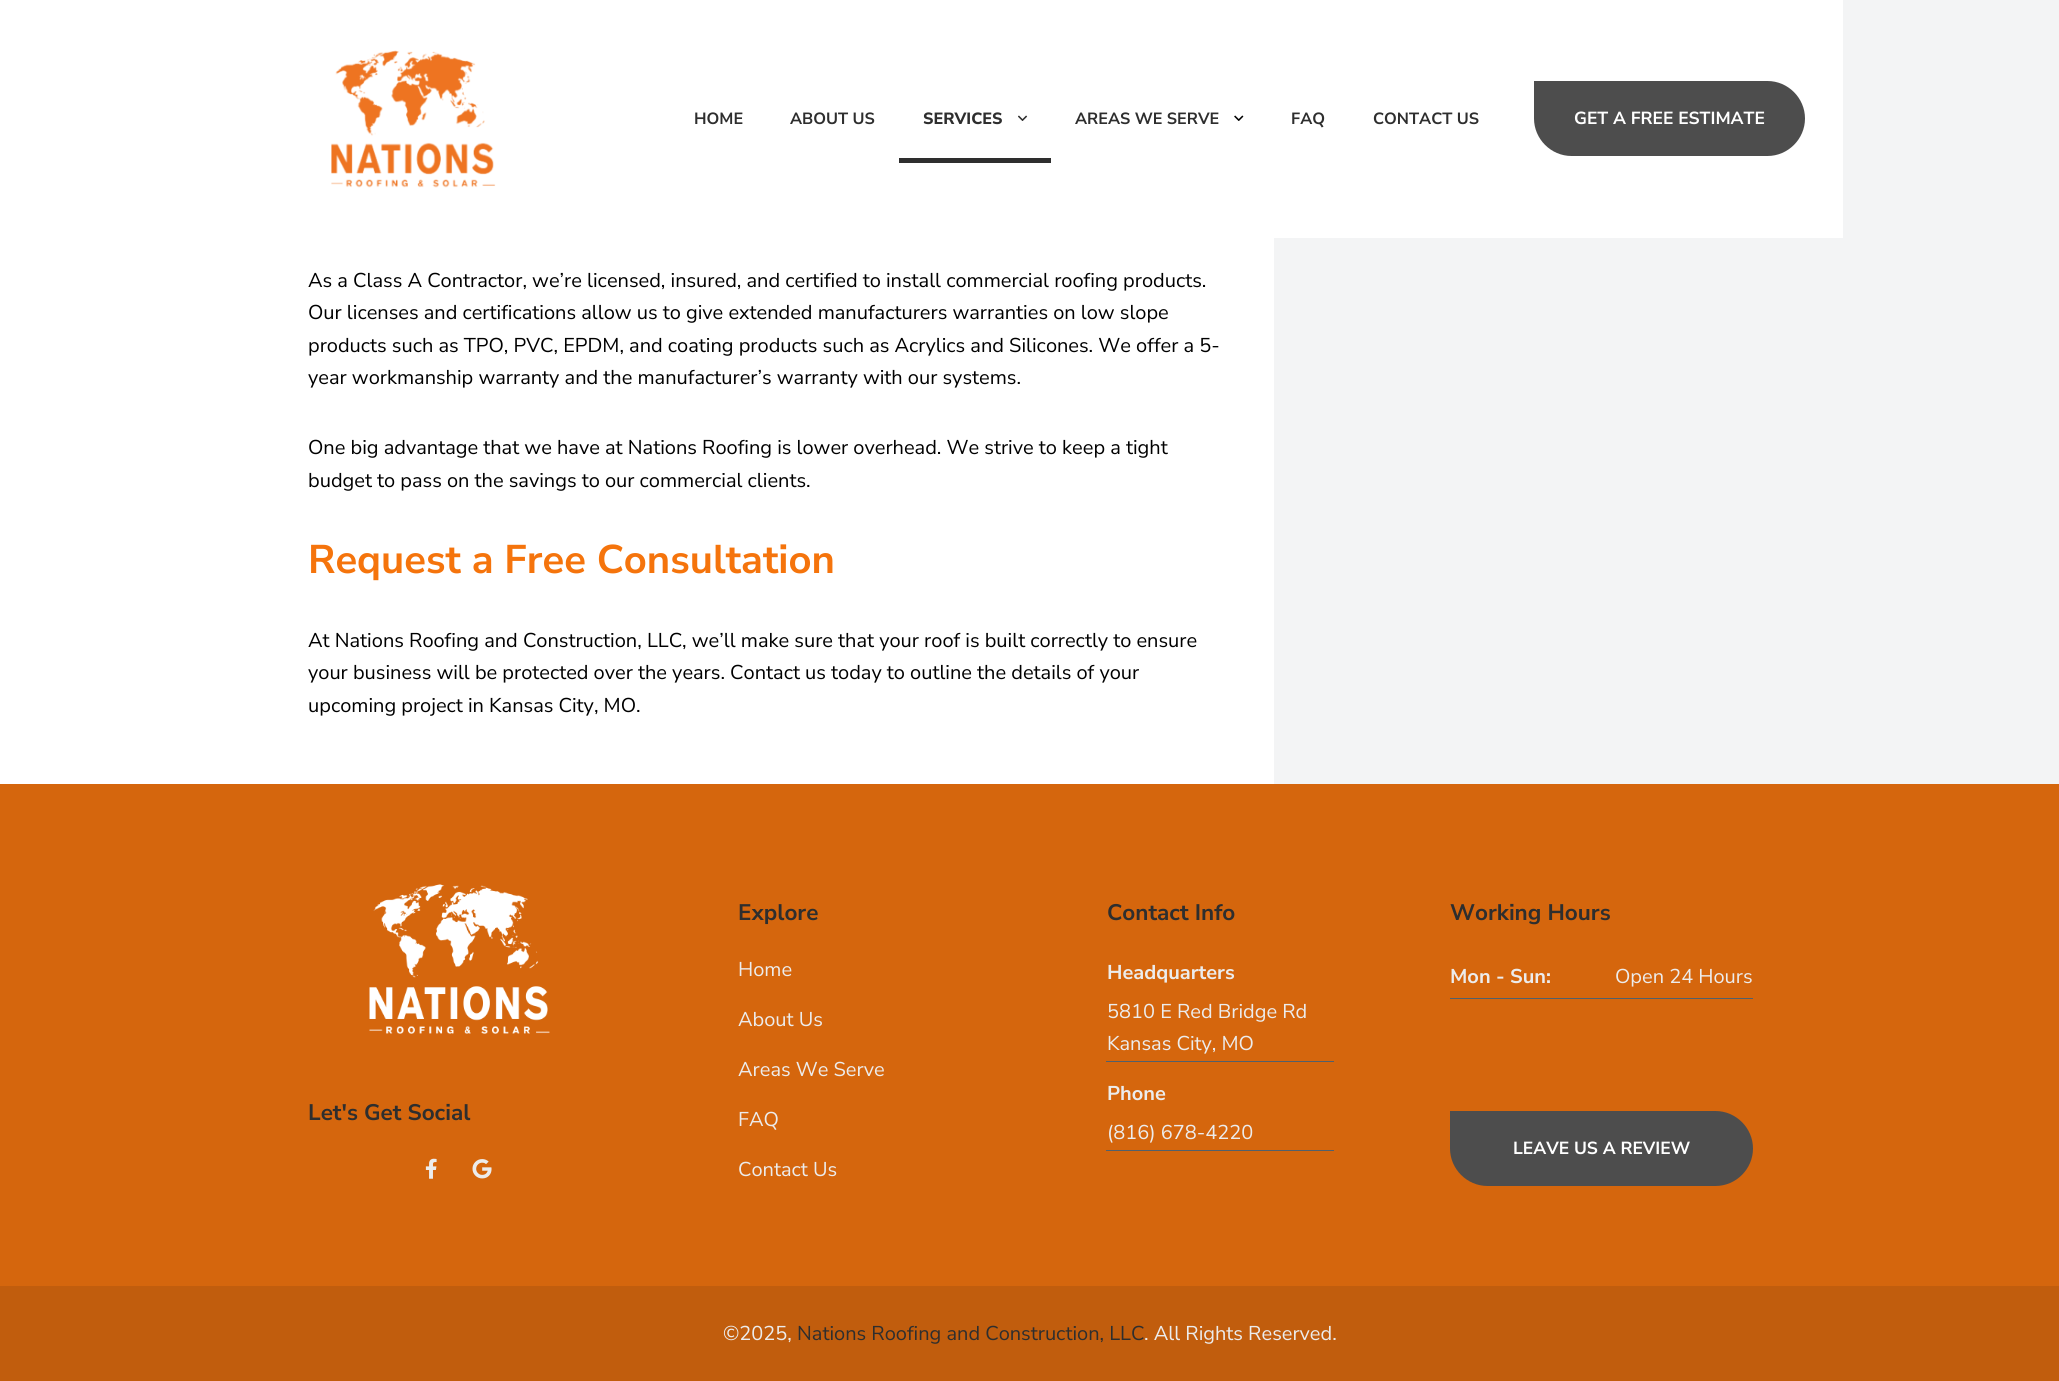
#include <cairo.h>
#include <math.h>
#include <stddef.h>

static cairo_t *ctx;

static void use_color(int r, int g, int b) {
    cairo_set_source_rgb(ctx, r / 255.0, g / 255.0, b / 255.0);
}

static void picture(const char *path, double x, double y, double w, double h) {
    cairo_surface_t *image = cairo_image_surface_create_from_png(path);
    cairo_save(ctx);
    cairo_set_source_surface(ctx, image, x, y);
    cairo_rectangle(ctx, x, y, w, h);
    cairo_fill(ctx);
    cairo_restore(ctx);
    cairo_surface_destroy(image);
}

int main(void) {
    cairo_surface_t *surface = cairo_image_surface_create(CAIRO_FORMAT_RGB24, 2059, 1381);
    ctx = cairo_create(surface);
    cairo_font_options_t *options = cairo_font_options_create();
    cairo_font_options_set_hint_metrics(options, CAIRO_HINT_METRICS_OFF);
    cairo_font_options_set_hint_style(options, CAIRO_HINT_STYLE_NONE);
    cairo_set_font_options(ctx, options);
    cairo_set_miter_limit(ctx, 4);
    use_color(255, 255, 255);
    cairo_paint(ctx);
    use_color(243, 244, 245);
    cairo_rectangle(ctx, 1274, 0, 785, 784);
    cairo_fill(ctx);
    use_color(255, 255, 255);
    cairo_rectangle(ctx, 1274, 0, 569, 238);
    cairo_fill(ctx);
    picture("img1.png", 331, 50, 165, 138);
    cairo_select_font_face(ctx, "Nunito Sans", CAIRO_FONT_SLANT_NORMAL, CAIRO_FONT_WEIGHT_BOLD);
    cairo_set_font_size(ctx, 16.25);
    use_color(46, 46, 46);
    cairo_move_to(ctx, 694, 124);
    cairo_show_text(ctx, "HOME");
    cairo_move_to(ctx, 790, 124);
    cairo_show_text(ctx, "ABOUT US");
    cairo_rectangle(ctx, 899, 158, 152, 5);
    cairo_fill(ctx);
    cairo_select_font_face(ctx, "Nunito Sans ExtraBold", CAIRO_FONT_SLANT_NORMAL, CAIRO_FONT_WEIGHT_NORMAL);
    cairo_move_to(ctx, 923, 124);
    cairo_show_text(ctx, "SERVICES");
    picture("img2.png", 1018, 115, 10, 6);
    cairo_select_font_face(ctx, "Nunito Sans", CAIRO_FONT_SLANT_NORMAL, CAIRO_FONT_WEIGHT_BOLD);
    cairo_move_to(ctx, 1075, 124);
    cairo_show_text(ctx, "AREAS WE SERVE");
    picture("img3.png", 1234, 115, 10, 6);
    cairo_move_to(ctx, 1291, 124);
    cairo_show_text(ctx, "FAQ");
    cairo_move_to(ctx, 1373, 124);
    cairo_show_text(ctx, "CONTACT US");
    use_color(77, 77, 77);
    cairo_new_path(ctx);
    cairo_move_to(ctx, 1534, 81);
    cairo_line_to(ctx, 1767.5, 81);
    cairo_curve_to(ctx, 1788, 81, 1805, 98, 1805, 118.5);
    cairo_curve_to(ctx, 1805, 139, 1788, 156, 1767.5, 156);
    cairo_line_to(ctx, 1571.5, 156);
    cairo_curve_to(ctx, 1551, 156, 1534, 139, 1534, 118.5);
    cairo_close_path(ctx);
    cairo_fill(ctx);
    cairo_set_font_size(ctx, 17.5);
    use_color(255, 255, 255);
    cairo_move_to(ctx, 1574, 124);
    cairo_show_text(ctx, "GET A FREE ESTIMATE");
    cairo_select_font_face(ctx, "Nunito Sans", CAIRO_FONT_SLANT_NORMAL, CAIRO_FONT_WEIGHT_NORMAL);
    cairo_set_font_size(ctx, 20);
    use_color(0, 0, 0);
    cairo_move_to(ctx, 308, 287);
    cairo_show_text(ctx, "As a Class A Contractor, we’re licensed, insured, and certified to install commercial roofing products.");
    cairo_move_to(ctx, 308, 319);
    cairo_show_text(ctx, "Our licenses and certifications allow us to give extended manufacturers warranties on low slope");
    cairo_move_to(ctx, 308, 352);
    cairo_show_text(ctx, "products such as TPO, PVC, EPDM, and coating products such as Acrylics and Silicones. We offer a 5-");
    cairo_move_to(ctx, 308, 384);
    cairo_show_text(ctx, "year workmanship warranty and the manufacturer’s warranty with our systems.");
    cairo_move_to(ctx, 308, 454);
    cairo_show_text(ctx, "One big advantage that we have at Nations Roofing is lower overhead. We strive to keep a tight");
    cairo_move_to(ctx, 308, 487);
    cairo_show_text(ctx, "budget to pass on the savings to our commercial clients.");
    cairo_select_font_face(ctx, "Nunito Sans", CAIRO_FONT_SLANT_NORMAL, CAIRO_FONT_WEIGHT_BOLD);
    cairo_set_font_size(ctx, 40);
    use_color(245, 116, 12);
    cairo_move_to(ctx, 308, 573);
    cairo_show_text(ctx, "Request a Free Consultation");
    cairo_select_font_face(ctx, "Nunito Sans", CAIRO_FONT_SLANT_NORMAL, CAIRO_FONT_WEIGHT_NORMAL);
    cairo_set_font_size(ctx, 20);
    use_color(0, 0, 0);
    cairo_move_to(ctx, 308, 647);
    cairo_show_text(ctx, "At Nations Roofing and Construction, LLC, we’ll make sure that your roof is built correctly to ensure");
    cairo_move_to(ctx, 308, 679);
    cairo_show_text(ctx, "your business will be protected over the years. Contact us today to outline the details of your");
    cairo_move_to(ctx, 308, 712);
    cairo_show_text(ctx, "upcoming project in Kansas City, MO.");
    use_color(213, 102, 13);
    cairo_rectangle(ctx, 0, 784, 2059, 502);
    cairo_fill(ctx);
    picture("img4.png", 369, 884, 181, 150);
    cairo_select_font_face(ctx, "Nunito Sans", CAIRO_FONT_SLANT_NORMAL, CAIRO_FONT_WEIGHT_BOLD);
    cairo_set_font_size(ctx, 22.5);
    use_color(46, 46, 46);
    cairo_move_to(ctx, 308, 1120);
    cairo_show_text(ctx, "Let's Get Social");
    picture("img5.png", 425, 1158, 12, 21);
    picture("img6.png", 472, 1159, 20, 20);
    cairo_move_to(ctx, 738, 920);
    cairo_show_text(ctx, "Explore");
    cairo_select_font_face(ctx, "Nunito Sans", CAIRO_FONT_SLANT_NORMAL, CAIRO_FONT_WEIGHT_NORMAL);
    cairo_set_font_size(ctx, 20);
    use_color(236, 236, 236);
    cairo_move_to(ctx, 738, 976);
    cairo_show_text(ctx, "Home");
    cairo_move_to(ctx, 738, 1026);
    cairo_show_text(ctx, "About Us");
    cairo_move_to(ctx, 738, 1076);
    cairo_show_text(ctx, "Areas We Serve");
    cairo_move_to(ctx, 738, 1126);
    cairo_show_text(ctx, "FAQ");
    cairo_move_to(ctx, 738, 1176);
    cairo_show_text(ctx, "Contact Us");
    cairo_select_font_face(ctx, "Nunito Sans", CAIRO_FONT_SLANT_NORMAL, CAIRO_FONT_WEIGHT_BOLD);
    cairo_set_font_size(ctx, 22.5);
    use_color(46, 46, 46);
    cairo_move_to(ctx, 1107, 920);
    cairo_show_text(ctx, "Contact Info");
    use_color(81, 96, 108);
    cairo_rectangle(ctx, 1106, 1061, 228, 1);
    cairo_fill(ctx);
    cairo_set_font_size(ctx, 20);
    use_color(236, 236, 236);
    cairo_move_to(ctx, 1107, 979);
    cairo_show_text(ctx, "Headquarters");
    cairo_select_font_face(ctx, "Nunito Sans", CAIRO_FONT_SLANT_NORMAL, CAIRO_FONT_WEIGHT_NORMAL);
    cairo_move_to(ctx, 1107, 1018);
    cairo_show_text(ctx, "5810 E Red Bridge Rd");
    cairo_move_to(ctx, 1107, 1050);
    cairo_show_text(ctx, "Kansas City, MO");
    use_color(81, 96, 108);
    cairo_rectangle(ctx, 1106, 1150, 228, 1);
    cairo_fill(ctx);
    cairo_select_font_face(ctx, "Nunito Sans", CAIRO_FONT_SLANT_NORMAL, CAIRO_FONT_WEIGHT_BOLD);
    use_color(236, 236, 236);
    cairo_move_to(ctx, 1107, 1100);
    cairo_show_text(ctx, "Phone");
    cairo_select_font_face(ctx, "Nunito Sans", CAIRO_FONT_SLANT_NORMAL, CAIRO_FONT_WEIGHT_NORMAL);
    cairo_move_to(ctx, 1107, 1139);
    cairo_show_text(ctx, "(816) 678-4220");
    cairo_select_font_face(ctx, "Nunito Sans", CAIRO_FONT_SLANT_NORMAL, CAIRO_FONT_WEIGHT_BOLD);
    cairo_set_font_size(ctx, 22.5);
    use_color(46, 46, 46);
    cairo_move_to(ctx, 1450, 920);
    cairo_show_text(ctx, "Working Hours");
    use_color(81, 96, 108);
    cairo_rectangle(ctx, 1450, 998, 303, 1);
    cairo_fill(ctx);
    cairo_set_font_size(ctx, 20);
    use_color(236, 236, 236);
    cairo_move_to(ctx, 1450, 983);
    cairo_show_text(ctx, "Mon - Sun:");
    cairo_select_font_face(ctx, "Nunito Sans", CAIRO_FONT_SLANT_NORMAL, CAIRO_FONT_WEIGHT_NORMAL);
    cairo_move_to(ctx, 1615, 983);
    cairo_show_text(ctx, "Open 24 Hours");
    use_color(77, 77, 77);
    cairo_new_path(ctx);
    cairo_move_to(ctx, 1450, 1111);
    cairo_line_to(ctx, 1715.5, 1111);
    cairo_curve_to(ctx, 1736, 1111, 1753, 1128, 1753, 1148.5);
    cairo_curve_to(ctx, 1753, 1169, 1736, 1186, 1715.5, 1186);
    cairo_line_to(ctx, 1487.5, 1186);
    cairo_curve_to(ctx, 1467, 1186, 1450, 1169, 1450, 1148.5);
    cairo_close_path(ctx);
    cairo_fill(ctx);
    cairo_select_font_face(ctx, "Nunito Sans", CAIRO_FONT_SLANT_NORMAL, CAIRO_FONT_WEIGHT_BOLD);
    cairo_set_font_size(ctx, 17.5);
    use_color(255, 255, 255);
    cairo_move_to(ctx, 1513, 1154);
    cairo_show_text(ctx, "LEAVE US A REVIEW");
    use_color(193, 93, 13);
    cairo_rectangle(ctx, 0, 1286, 2059, 95);
    cairo_fill(ctx);
    cairo_select_font_face(ctx, "Nunito Sans", CAIRO_FONT_SLANT_NORMAL, CAIRO_FONT_WEIGHT_NORMAL);
    cairo_set_font_size(ctx, 20);
    use_color(236, 236, 236);
    cairo_move_to(ctx, 723, 1340);
    cairo_show_text(ctx, "©2025,");
    use_color(46, 46, 46);
    cairo_move_to(ctx, 797, 1340);
    cairo_show_text(ctx, "Nations Roofing and Construction, LLC");
    use_color(236, 236, 236);
    cairo_move_to(ctx, 1144, 1340);
    cairo_show_text(ctx, ". All Rights Reserved.");
    cairo_surface_write_to_png(surface, "result.png");
    cairo_font_options_destroy(options);
    cairo_destroy(ctx);
    cairo_surface_destroy(surface);
    return 0;
}
